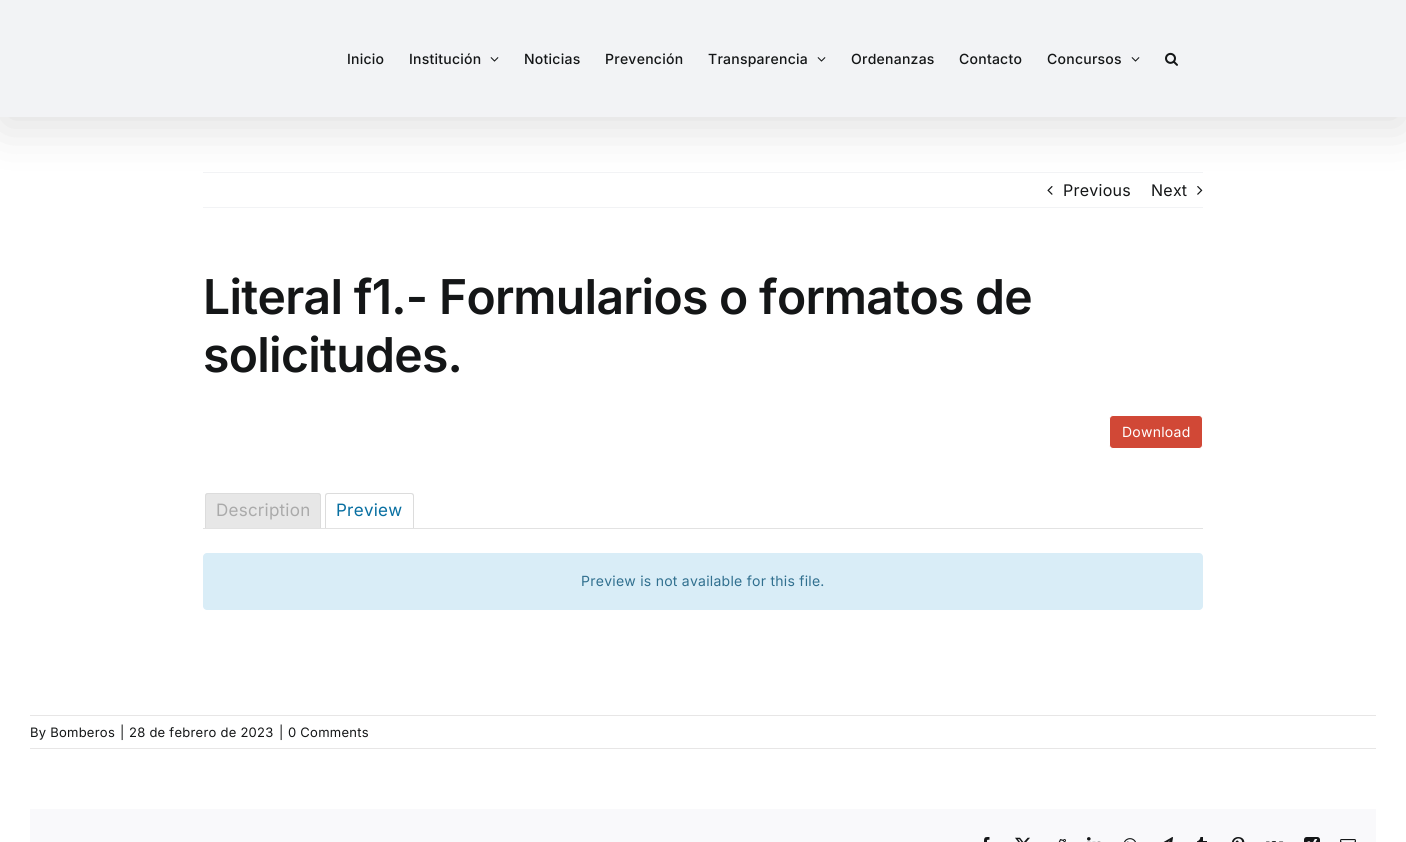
#include <cairo.h>
#include <math.h>
#include <stddef.h>

static cairo_t *ctx;

static void use_color(int r, int g, int b) {
    cairo_set_source_rgb(ctx, r / 255.0, g / 255.0, b / 255.0);
}

static void spaced_text(double x, double y, const char *s, double letter, double word) {
    cairo_move_to(ctx, x, y);
    while (*s) {
        char ch[5] = {0};
        int n = 0;
        do ch[n++] = *s++; while ((*s & 0xC0) == 0x80);
        cairo_show_text(ctx, ch);
        cairo_rel_move_to(ctx, letter + word * (*ch == ' '), 0);
    }
}

static void round_rect(double x, double y, double w, double h, double r) {
    cairo_new_sub_path(ctx);
    cairo_arc(ctx, x + w - r, y + h - r, r, 0, M_PI / 2);
    cairo_arc(ctx, x + r, y + h - r, r, M_PI / 2, M_PI);
    cairo_arc(ctx, x + r, y + r, r, M_PI, 1.5 * M_PI);
    cairo_arc(ctx, x + w - r, y + r, r, 1.5 * M_PI, 2 * M_PI);
    cairo_close_path(ctx);
}

static void shadow(double x, double y, double w, double h, double r, double blur, double alpha) {
    cairo_push_group_with_content(ctx, CAIRO_CONTENT_ALPHA);
    cairo_set_operator(ctx, CAIRO_OPERATOR_SOURCE);
    for (int i = 15; i >= -15 && fmin(w, h) + blur * i / 3 > 0; i -= 2) {
        double e = blur * i / 6;
        cairo_set_source_rgba(ctx, 0, 0, 0, alpha * erfc((i - 1) / 8.5) / 2);
        round_rect(x - e, y - e, w + 2 * e, h + 2 * e, fmax(0, fmin(r + e + blur * .6, fmin(w, h) / 2 + e)));
        cairo_fill(ctx);
    }
    cairo_pattern_t *soft = cairo_pop_group(ctx);
    cairo_mask(ctx, soft);
    cairo_pattern_destroy(soft);
}

static void picture(const char *path, double x, double y, double w, double h) {
    cairo_surface_t *image = cairo_image_surface_create_from_png(path);
    cairo_save(ctx);
    cairo_set_source_surface(ctx, image, x, y);
    cairo_rectangle(ctx, x, y, w, h);
    cairo_fill(ctx);
    cairo_restore(ctx);
    cairo_surface_destroy(image);
}

int main(void) {
    cairo_surface_t *surface = cairo_image_surface_create(CAIRO_FORMAT_RGB24, 1406, 842);
    ctx = cairo_create(surface);
    cairo_font_options_t *options = cairo_font_options_create();
    cairo_font_options_set_hint_metrics(options, CAIRO_HINT_METRICS_OFF);
    cairo_font_options_set_hint_style(options, CAIRO_HINT_STYLE_NONE);
    cairo_set_font_options(ctx, options);
    cairo_set_miter_limit(ctx, 4);
    use_color(255, 255, 255);
    cairo_paint(ctx);
    use_color(242, 243, 245);
    cairo_rectangle(ctx, 203, 172, 1000, 1);
    cairo_fill(ctx);
    picture("img3.png", 1047, 186, 6, 9);
    picture("img4.png", 1197, 186, 6, 9);
    use_color(0, 0, 0);
    shadow(2, 12, 1402, 113, 0, 25, 0.14);
    use_color(242, 243, 245);
    cairo_rectangle(ctx, 0, 0, 1406, 117);
    cairo_fill(ctx);
    cairo_select_font_face(ctx, "Inter Medium", CAIRO_FONT_SLANT_NORMAL, CAIRO_FONT_WEIGHT_NORMAL);
    cairo_set_font_size(ctx, 14);
    use_color(20, 22, 23);
    spaced_text(347, 64, "Inicio", 0.25, 0);
    spaced_text(409, 64, "Institución", 0.25, 0);
    picture("img1.png", 490, 57, 9, 5);
    spaced_text(524, 64, "Noticias", 0.25, 0);
    spaced_text(605, 64, "Prevención", 0.25, 0);
    spaced_text(708, 64, "Transparencia", 0.25, 0);
    picture("img1.png", 817, 57, 9, 5);
    spaced_text(851, 64, "Ordenanzas", 0.25, 0);
    spaced_text(959, 64, "Contacto", 0.25, 0);
    spaced_text(1047, 64, "Concursos", 0.25, 0);
    picture("img1.png", 1131, 57, 9, 5);
    picture("img2.png", 1165, 52, 13, 14);
    use_color(242, 243, 245);
    cairo_rectangle(ctx, 203, 207, 1000, 1);
    cairo_fill(ctx);
    cairo_select_font_face(ctx, "Inter", CAIRO_FONT_SLANT_NORMAL, CAIRO_FONT_WEIGHT_NORMAL);
    cairo_set_font_size(ctx, 16);
    use_color(20, 22, 23);
    spaced_text(1063, 196, "Previous", 0.25, 0);
    spaced_text(1151, 196, "Next", 0.25, 0);
    cairo_select_font_face(ctx, "Inter SemiBold", CAIRO_FONT_SLANT_NORMAL, CAIRO_FONT_WEIGHT_NORMAL);
    cairo_set_font_size(ctx, 48);
    spaced_text(203, 314, "Literal f1.- Formularios o formatos de", -0.7, 0);
    spaced_text(203, 372, "solicitudes.", -0.7, 0);
    use_color(209, 72, 54);
    round_rect(1109.5, 415.5, 93, 33, 3.5);
    cairo_fill_preserve(ctx);
    use_color(255, 255, 255);
    cairo_set_line_width(ctx, 1);
    cairo_stroke(ctx);
    cairo_select_font_face(ctx, "Inter", CAIRO_FONT_SLANT_NORMAL, CAIRO_FONT_WEIGHT_NORMAL);
    cairo_set_font_size(ctx, 14);
    spaced_text(1122, 437, "Download", 0.25, 0);
    use_color(231, 231, 231);
    cairo_new_path(ctx);
    cairo_move_to(ctx, 208, 493);
    cairo_line_to(ctx, 318, 493);
    cairo_curve_to(ctx, 319.5, 493, 321, 494.5, 321, 496);
    cairo_line_to(ctx, 321, 528);
    cairo_line_to(ctx, 205, 528);
    cairo_line_to(ctx, 205, 496);
    cairo_curve_to(ctx, 205, 494.5, 206.5, 493, 208, 493);
    cairo_close_path(ctx);
    cairo_fill(ctx);
    use_color(220, 220, 220);
    cairo_set_fill_rule(ctx, CAIRO_FILL_RULE_EVEN_ODD);
    cairo_new_path(ctx);
    cairo_move_to(ctx, 208, 493);
    cairo_line_to(ctx, 318, 493);
    cairo_curve_to(ctx, 320, 493, 321, 494, 321, 496);
    cairo_line_to(ctx, 321, 528);
    cairo_line_to(ctx, 205, 528);
    cairo_line_to(ctx, 205, 496);
    cairo_curve_to(ctx, 205, 494, 206, 493, 208, 493);
    cairo_close_path(ctx);
    cairo_move_to(ctx, 208, 494);
    cairo_line_to(ctx, 318, 494);
    cairo_curve_to(ctx, 319, 494, 320, 495, 320, 496);
    cairo_line_to(ctx, 320, 528);
    cairo_line_to(ctx, 206, 528);
    cairo_line_to(ctx, 206, 496);
    cairo_curve_to(ctx, 206, 495, 207, 494, 208, 494);
    cairo_close_path(ctx);
    cairo_fill(ctx);
    cairo_set_font_size(ctx, 17);
    use_color(170, 170, 170);
    spaced_text(216, 516, "Description", 0.25, 0);
    use_color(220, 220, 220);
    cairo_new_path(ctx);
    cairo_move_to(ctx, 328, 493);
    cairo_line_to(ctx, 411, 493);
    cairo_curve_to(ctx, 413, 493, 414, 494, 414, 496);
    cairo_line_to(ctx, 414, 528);
    cairo_line_to(ctx, 325, 528);
    cairo_line_to(ctx, 325, 496);
    cairo_curve_to(ctx, 325, 494, 326, 493, 328, 493);
    cairo_close_path(ctx);
    cairo_move_to(ctx, 328, 494);
    cairo_line_to(ctx, 411, 494);
    cairo_curve_to(ctx, 412, 494, 413, 495, 413, 496);
    cairo_line_to(ctx, 413, 528);
    cairo_line_to(ctx, 326, 528);
    cairo_line_to(ctx, 326, 496);
    cairo_curve_to(ctx, 326, 495, 327, 494, 328, 494);
    cairo_close_path(ctx);
    cairo_fill(ctx);
    use_color(8, 111, 161);
    spaced_text(336, 516, "Preview", 0.25, 0);
    use_color(226, 226, 226);
    cairo_rectangle(ctx, 203, 528, 1000, 1);
    cairo_fill(ctx);
    use_color(217, 237, 247);
    round_rect(203, 553, 1000, 57, 4);
    cairo_fill(ctx);
    cairo_set_font_size(ctx, 14);
    use_color(49, 112, 143);
    spaced_text(581, 586, "Preview is not available for this file.", 0.25, 0);
    use_color(231, 230, 230);
    cairo_rectangle(ctx, 30, 715, 1346, 1);
    cairo_fill(ctx);
    cairo_rectangle(ctx, 30, 748, 1346, 1);
    cairo_fill(ctx);
    cairo_set_font_size(ctx, 13);
    use_color(20, 22, 23);
    spaced_text(30, 737, "By Bomberos", 0.25, 0);
    spaced_text(120, 737, "|", 0.25, 0);
    spaced_text(129, 737, "28 de febrero de 2023", 0.25, 0);
    spaced_text(279, 737, "|", 0.25, 0);
    spaced_text(288, 737, "0 Comments", 0.25, 0);
    use_color(249, 249, 251);
    cairo_rectangle(ctx, 30, 809, 1346, 33);
    cairo_fill(ctx);
    picture("img5.png", 984, 837, 6, 5);
    picture("img6.png", 1015, 837, 15, 5);
    picture("img7.png", 1058, 839, 8, 3);
    picture("img8.png", 1087, 837, 14, 5);
    picture("img9.png", 1124, 838, 12, 4);
    picture("img10.png", 1163, 837, 10, 5);
    picture("img11.png", 1197, 837, 10, 5);
    picture("img12.png", 1232, 837, 13, 5);
    picture("img13.png", 1266, 841, 18, 1);
    picture("img14.png", 1304, 837, 16, 5);
    picture("img15.png", 1340, 839, 16, 3);
    cairo_surface_write_to_png(surface, "result.png");
    cairo_font_options_destroy(options);
    cairo_destroy(ctx);
    cairo_surface_destroy(surface);
    return 0;
}
